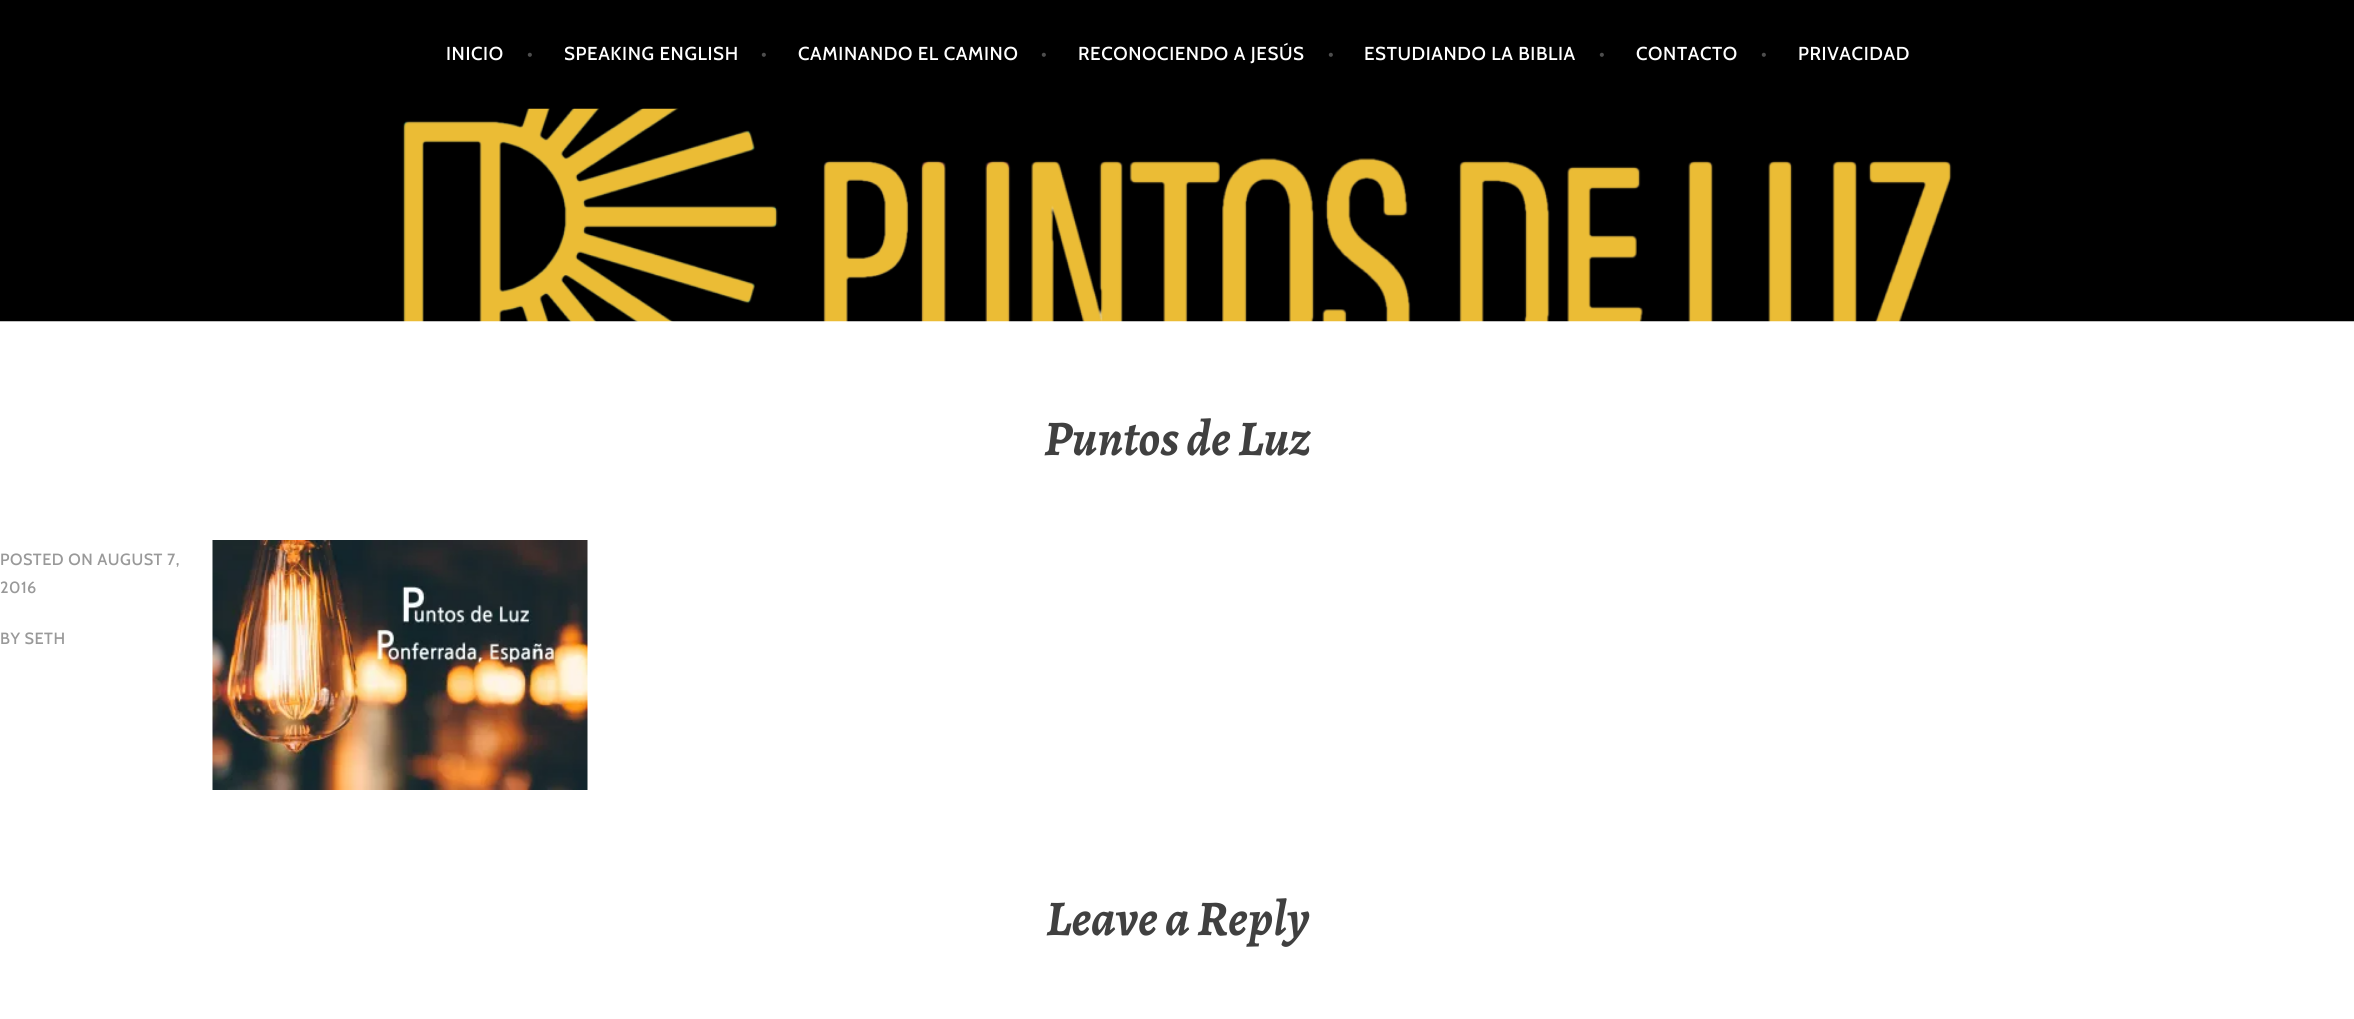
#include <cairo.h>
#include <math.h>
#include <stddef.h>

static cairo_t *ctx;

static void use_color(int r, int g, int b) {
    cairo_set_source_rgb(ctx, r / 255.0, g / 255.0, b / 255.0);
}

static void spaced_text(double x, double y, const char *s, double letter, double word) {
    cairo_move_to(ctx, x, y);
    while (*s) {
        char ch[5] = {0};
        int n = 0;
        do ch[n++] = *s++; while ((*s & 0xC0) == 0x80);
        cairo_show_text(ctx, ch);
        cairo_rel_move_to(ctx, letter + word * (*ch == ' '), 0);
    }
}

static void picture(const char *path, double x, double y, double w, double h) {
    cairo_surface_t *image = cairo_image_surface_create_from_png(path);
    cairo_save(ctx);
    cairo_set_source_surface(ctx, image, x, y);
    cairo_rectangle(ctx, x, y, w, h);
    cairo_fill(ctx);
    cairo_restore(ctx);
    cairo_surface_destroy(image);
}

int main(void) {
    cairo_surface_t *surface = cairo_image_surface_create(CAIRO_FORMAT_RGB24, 2354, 1019);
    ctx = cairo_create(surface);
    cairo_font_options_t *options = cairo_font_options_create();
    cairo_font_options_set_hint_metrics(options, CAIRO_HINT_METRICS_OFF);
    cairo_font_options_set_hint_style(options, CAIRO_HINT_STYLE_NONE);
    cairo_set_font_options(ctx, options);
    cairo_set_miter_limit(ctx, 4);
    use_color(255, 255, 255);
    cairo_paint(ctx);
    use_color(0, 0, 0);
    cairo_rectangle(ctx, 0, 0, 2354, 109);
    cairo_fill(ctx);
    cairo_select_font_face(ctx, "Cabin Medium", CAIRO_FONT_SLANT_NORMAL, CAIRO_FONT_WEIGHT_NORMAL);
    cairo_set_font_size(ctx, 18.75);
    use_color(255, 255, 255);
    spaced_text(446, 60, "INICIO", 0.6, 0);
    use_color(77, 77, 77);
    spaced_text(527, 60, "•", 0.6, 0);
    use_color(255, 255, 255);
    spaced_text(564, 60, "SPEAKING ENGLISH", 0.6, 0);
    use_color(77, 77, 77);
    spaced_text(761, 60, "•", 0.6, 0);
    use_color(255, 255, 255);
    spaced_text(798, 60, "CAMINANDO EL CAMINO", 0.6, 0);
    use_color(77, 77, 77);
    spaced_text(1041, 60, "•", 0.6, 0);
    use_color(255, 255, 255);
    spaced_text(1078, 60, "RECONOCIENDO A JESÚS", 0.6, 0);
    use_color(77, 77, 77);
    spaced_text(1328, 60, "•", 0.6, 0);
    use_color(255, 255, 255);
    spaced_text(1364, 60, "ESTUDIANDO LA BIBLIA", 0.6, 0);
    use_color(77, 77, 77);
    spaced_text(1599, 60, "•", 0.6, 0);
    use_color(255, 255, 255);
    spaced_text(1636, 60, "CONTACTO", 0.6, 0);
    use_color(77, 77, 77);
    spaced_text(1761, 60, "•", 0.6, 0);
    use_color(255, 255, 255);
    spaced_text(1798, 60, "PRIVACIDAD", 0.6, 0);
    picture("img1.png", 0, 108, 2354, 214);
    cairo_select_font_face(ctx, "Alegreya", CAIRO_FONT_SLANT_ITALIC, CAIRO_FONT_WEIGHT_BOLD);
    cairo_set_font_size(ctx, 50);
    use_color(64, 64, 64);
    cairo_move_to(ctx, 1044, 455);
    cairo_show_text(ctx, "Puntos de Luz");
    cairo_select_font_face(ctx, "Cabin Medium", CAIRO_FONT_SLANT_NORMAL, CAIRO_FONT_WEIGHT_NORMAL);
    cairo_set_font_size(ctx, 16.25);
    use_color(153, 153, 153);
    spaced_text(0, 565, "POSTED ON AUGUST 7,", 0.5, 0);
    spaced_text(0, 593, "2016", 0.5, 0);
    spaced_text(0, 644, "BY SETH", 0.5, 0);
    picture("img2.png", 212, 540, 376, 250);
    cairo_select_font_face(ctx, "Alegreya", CAIRO_FONT_SLANT_ITALIC, CAIRO_FONT_WEIGHT_BOLD);
    cairo_set_font_size(ctx, 50);
    use_color(64, 64, 64);
    cairo_move_to(ctx, 1046, 935);
    cairo_show_text(ctx, "Leave a Reply");
    cairo_surface_write_to_png(surface, "result.png");
    cairo_font_options_destroy(options);
    cairo_destroy(ctx);
    cairo_surface_destroy(surface);
    return 0;
}
